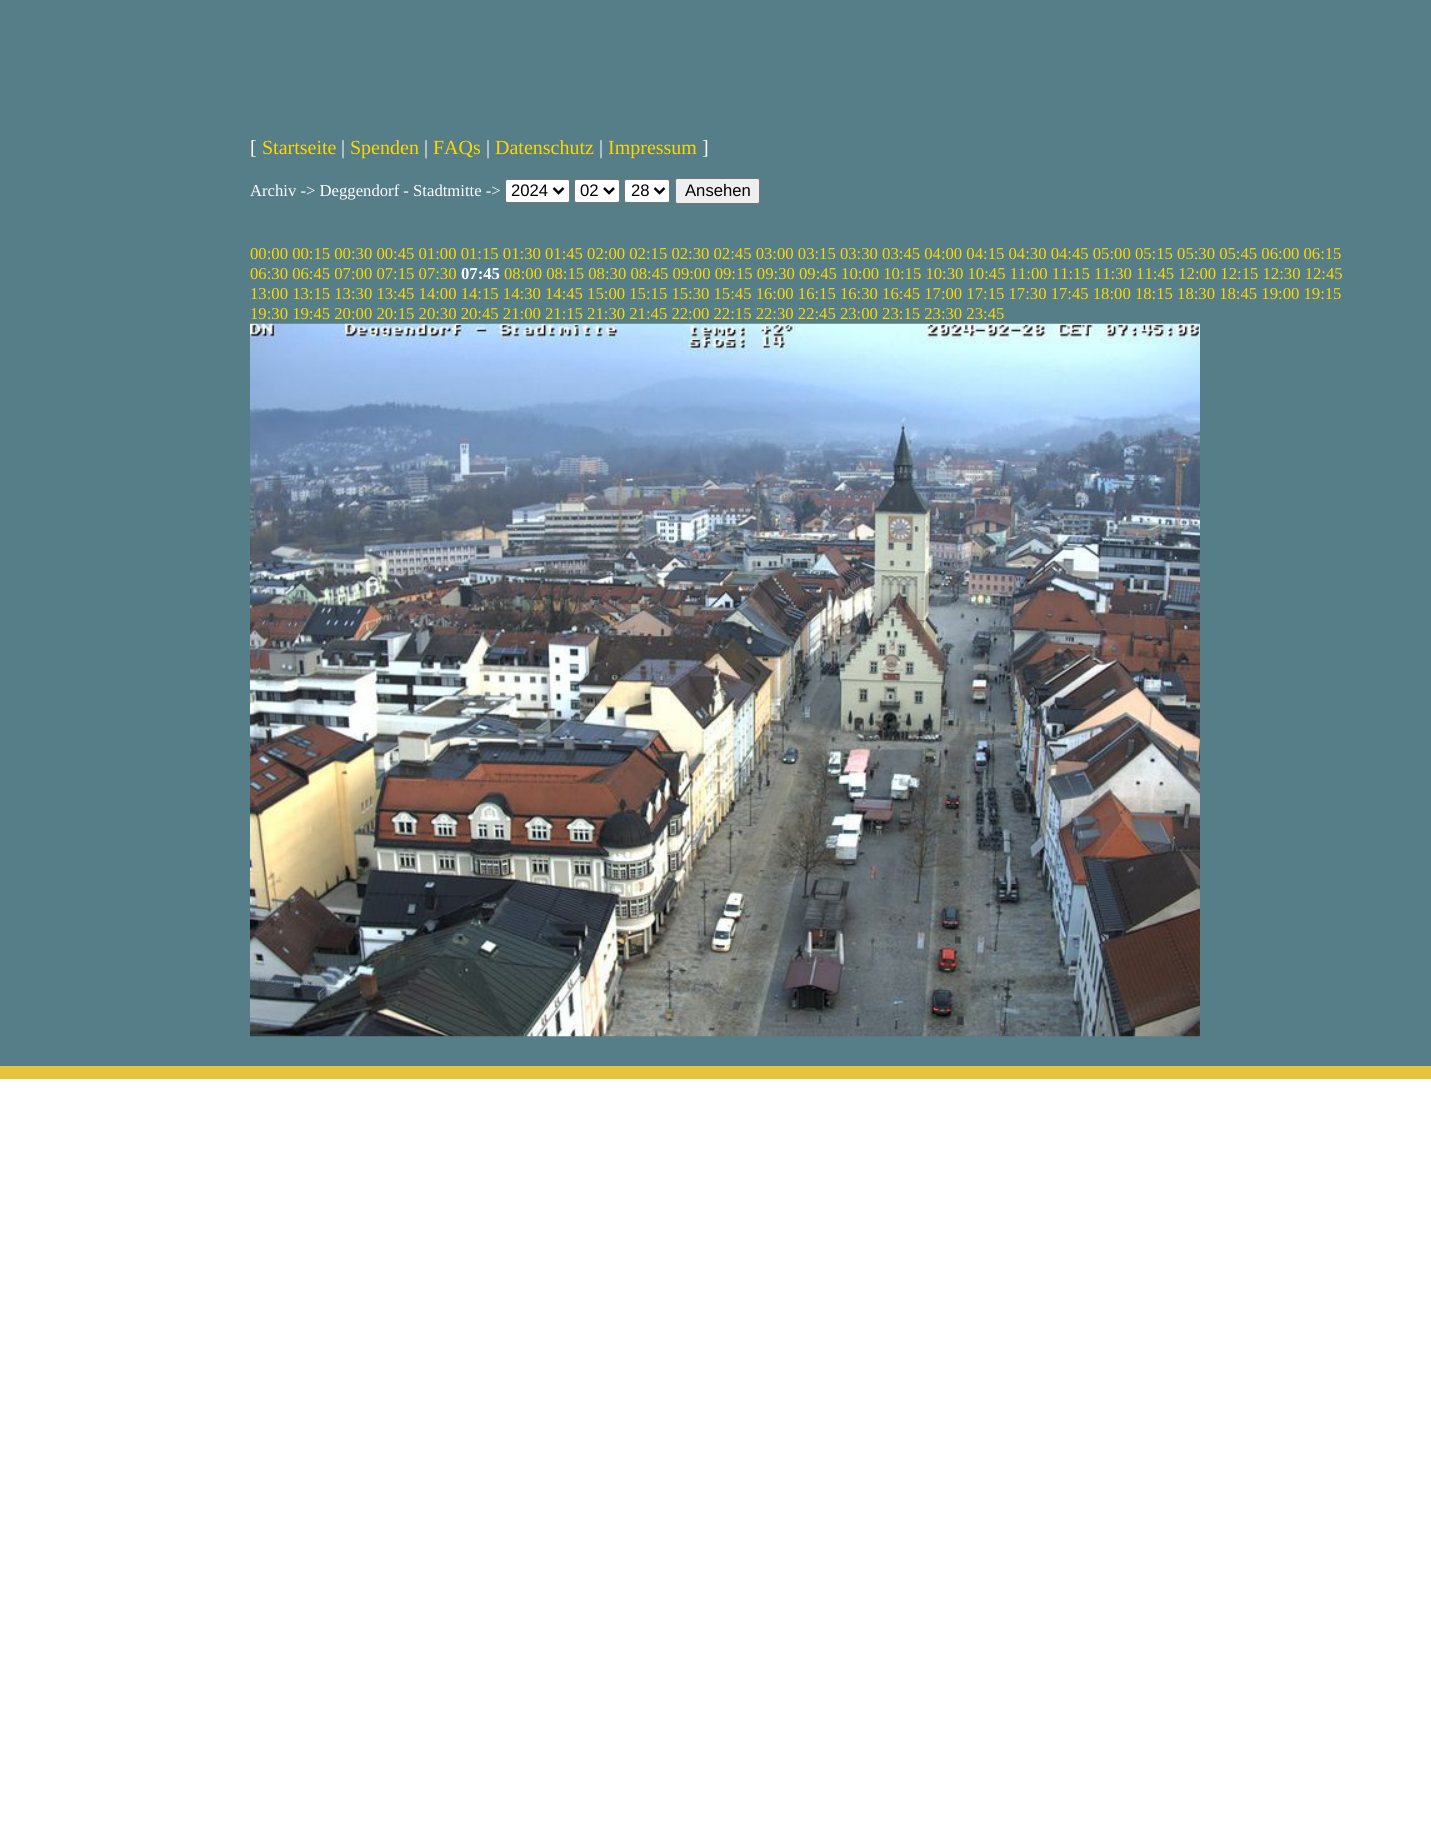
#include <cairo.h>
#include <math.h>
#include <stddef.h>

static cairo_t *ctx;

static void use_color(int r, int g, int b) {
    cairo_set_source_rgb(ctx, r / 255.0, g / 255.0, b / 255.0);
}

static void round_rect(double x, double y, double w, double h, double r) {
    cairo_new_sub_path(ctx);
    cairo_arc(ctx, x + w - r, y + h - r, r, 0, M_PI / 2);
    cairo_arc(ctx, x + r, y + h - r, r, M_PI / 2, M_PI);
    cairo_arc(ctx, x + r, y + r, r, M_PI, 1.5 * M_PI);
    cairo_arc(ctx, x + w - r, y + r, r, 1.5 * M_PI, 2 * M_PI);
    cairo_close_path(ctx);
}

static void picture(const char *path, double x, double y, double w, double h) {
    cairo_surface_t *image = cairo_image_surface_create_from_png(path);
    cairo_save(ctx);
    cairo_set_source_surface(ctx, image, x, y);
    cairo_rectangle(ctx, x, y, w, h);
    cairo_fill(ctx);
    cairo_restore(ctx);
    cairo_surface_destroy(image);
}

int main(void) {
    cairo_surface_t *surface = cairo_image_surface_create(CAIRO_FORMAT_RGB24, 1431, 1835);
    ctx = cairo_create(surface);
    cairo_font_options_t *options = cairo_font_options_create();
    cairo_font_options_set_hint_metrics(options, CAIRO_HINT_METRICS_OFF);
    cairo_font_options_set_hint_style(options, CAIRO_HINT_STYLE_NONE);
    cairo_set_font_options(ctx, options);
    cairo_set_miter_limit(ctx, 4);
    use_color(255, 255, 255);
    cairo_paint(ctx);
    use_color(86, 126, 136);
    cairo_rectangle(ctx, 0, 0, 1431, 1066);
    cairo_fill(ctx);
    use_color(230, 196, 60);
    cairo_rectangle(ctx, 0, 1066, 1431, 13);
    cairo_fill(ctx);
    cairo_select_font_face(ctx, "Liberation Serif", CAIRO_FONT_SLANT_NORMAL, CAIRO_FONT_WEIGHT_NORMAL);
    cairo_set_font_size(ctx, 20);
    use_color(255, 255, 255);
    cairo_move_to(ctx, 250, 154);
    cairo_show_text(ctx, "[");
    use_color(255, 215, 0);
    cairo_move_to(ctx, 262, 154);
    cairo_show_text(ctx, "Startseite");
    use_color(255, 255, 255);
    cairo_move_to(ctx, 341, 154);
    cairo_show_text(ctx, "|");
    use_color(255, 215, 0);
    cairo_move_to(ctx, 350, 154);
    cairo_show_text(ctx, "Spenden");
    use_color(255, 255, 255);
    cairo_move_to(ctx, 424, 154);
    cairo_show_text(ctx, "|");
    use_color(255, 215, 0);
    cairo_move_to(ctx, 433, 154);
    cairo_show_text(ctx, "FAQs");
    use_color(255, 255, 255);
    cairo_move_to(ctx, 486, 154);
    cairo_show_text(ctx, "|");
    use_color(255, 215, 0);
    cairo_move_to(ctx, 495, 154);
    cairo_show_text(ctx, "Datenschutz");
    use_color(255, 255, 255);
    cairo_move_to(ctx, 599, 154);
    cairo_show_text(ctx, "|");
    use_color(255, 215, 0);
    cairo_move_to(ctx, 608, 154);
    cairo_show_text(ctx, "Impressum");
    use_color(255, 255, 255);
    cairo_move_to(ctx, 702, 154);
    cairo_show_text(ctx, "]");
    cairo_set_font_size(ctx, 16.67);
    cairo_move_to(ctx, 250, 196);
    cairo_show_text(ctx, "Archiv -> Deggendorf - Stadtmitte ->");
    round_rect(505.5, 179.5, 64, 23, 2);
    cairo_fill_preserve(ctx);
    use_color(118, 118, 118);
    cairo_set_line_width(ctx, 1);
    cairo_stroke(ctx);
    cairo_new_path(ctx);
    cairo_move_to(ctx, 553.5, 188);
    cairo_line_to(ctx, 558.5, 193);
    cairo_line_to(ctx, 563.5, 188);
    use_color(0, 0, 0);
    cairo_set_line_width(ctx, 2.5);
    cairo_stroke(ctx);
    cairo_select_font_face(ctx, "Liberation Sans", CAIRO_FONT_SLANT_NORMAL, CAIRO_FONT_WEIGHT_NORMAL);
    cairo_move_to(ctx, 511, 196);
    cairo_show_text(ctx, "2024");
    use_color(255, 255, 255);
    round_rect(574.5, 179.5, 45, 23, 2);
    cairo_fill_preserve(ctx);
    use_color(118, 118, 118);
    cairo_set_line_width(ctx, 1);
    cairo_stroke(ctx);
    cairo_new_path(ctx);
    cairo_move_to(ctx, 604, 188);
    cairo_line_to(ctx, 609, 193);
    cairo_line_to(ctx, 614, 188);
    use_color(0, 0, 0);
    cairo_set_line_width(ctx, 2.5);
    cairo_stroke(ctx);
    cairo_move_to(ctx, 580, 196);
    cairo_show_text(ctx, "02");
    use_color(255, 255, 255);
    round_rect(624.5, 179.5, 45, 23, 2);
    cairo_fill_preserve(ctx);
    use_color(118, 118, 118);
    cairo_set_line_width(ctx, 1);
    cairo_stroke(ctx);
    cairo_new_path(ctx);
    cairo_move_to(ctx, 654.5, 188);
    cairo_line_to(ctx, 659.5, 193);
    cairo_line_to(ctx, 664.5, 188);
    use_color(0, 0, 0);
    cairo_set_line_width(ctx, 2.5);
    cairo_stroke(ctx);
    cairo_move_to(ctx, 631, 196);
    cairo_show_text(ctx, "28");
    use_color(239, 239, 239);
    round_rect(675.5, 178.5, 84, 25, 2);
    cairo_fill_preserve(ctx);
    use_color(118, 118, 118);
    cairo_set_line_width(ctx, 1);
    cairo_stroke(ctx);
    use_color(0, 0, 0);
    cairo_move_to(ctx, 685, 196);
    cairo_show_text(ctx, "Ansehen");
    cairo_select_font_face(ctx, "Liberation Serif", CAIRO_FONT_SLANT_NORMAL, CAIRO_FONT_WEIGHT_NORMAL);
    use_color(255, 215, 0);
    cairo_move_to(ctx, 250, 259);
    cairo_show_text(ctx, "00:00 00:15 00:30 00:45 01:00 01:15 01:30 01:45 02:00 02:15 02:30 02:45 03:00 03:15 03:30 03:45 04:00 04:15 04:30 04:45 05:00 05:15 05:30 05:45 06:00 06:15");
    cairo_move_to(ctx, 250, 279);
    cairo_show_text(ctx, "06:30 06:45 07:00 07:15 07:30");
    cairo_select_font_face(ctx, "Liberation Serif", CAIRO_FONT_SLANT_NORMAL, CAIRO_FONT_WEIGHT_BOLD);
    use_color(255, 255, 255);
    cairo_move_to(ctx, 461, 279);
    cairo_show_text(ctx, "07:45");
    cairo_select_font_face(ctx, "Liberation Serif", CAIRO_FONT_SLANT_NORMAL, CAIRO_FONT_WEIGHT_NORMAL);
    use_color(255, 215, 0);
    cairo_move_to(ctx, 504, 279);
    cairo_show_text(ctx, "08:00 08:15 08:30 08:45 09:00 09:15 09:30 09:45 10:00 10:15 10:30 10:45 11:00 11:15 11:30 11:45 12:00 12:15 12:30 12:45");
    cairo_move_to(ctx, 250, 299);
    cairo_show_text(ctx, "13:00 13:15 13:30 13:45 14:00 14:15 14:30 14:45 15:00 15:15 15:30 15:45 16:00 16:15 16:30 16:45 17:00 17:15 17:30 17:45 18:00 18:15 18:30 18:45 19:00 19:15");
    cairo_move_to(ctx, 250, 319);
    cairo_show_text(ctx, "19:30 19:45 20:00 20:15 20:30 20:45 21:00 21:15 21:30 21:45 22:00 22:15 22:30 22:45 23:00 23:15 23:30 23:45");
    picture("img1.png", 250, 323, 950, 714);
    cairo_surface_write_to_png(surface, "result.png");
    cairo_font_options_destroy(options);
    cairo_destroy(ctx);
    cairo_surface_destroy(surface);
    return 0;
}
